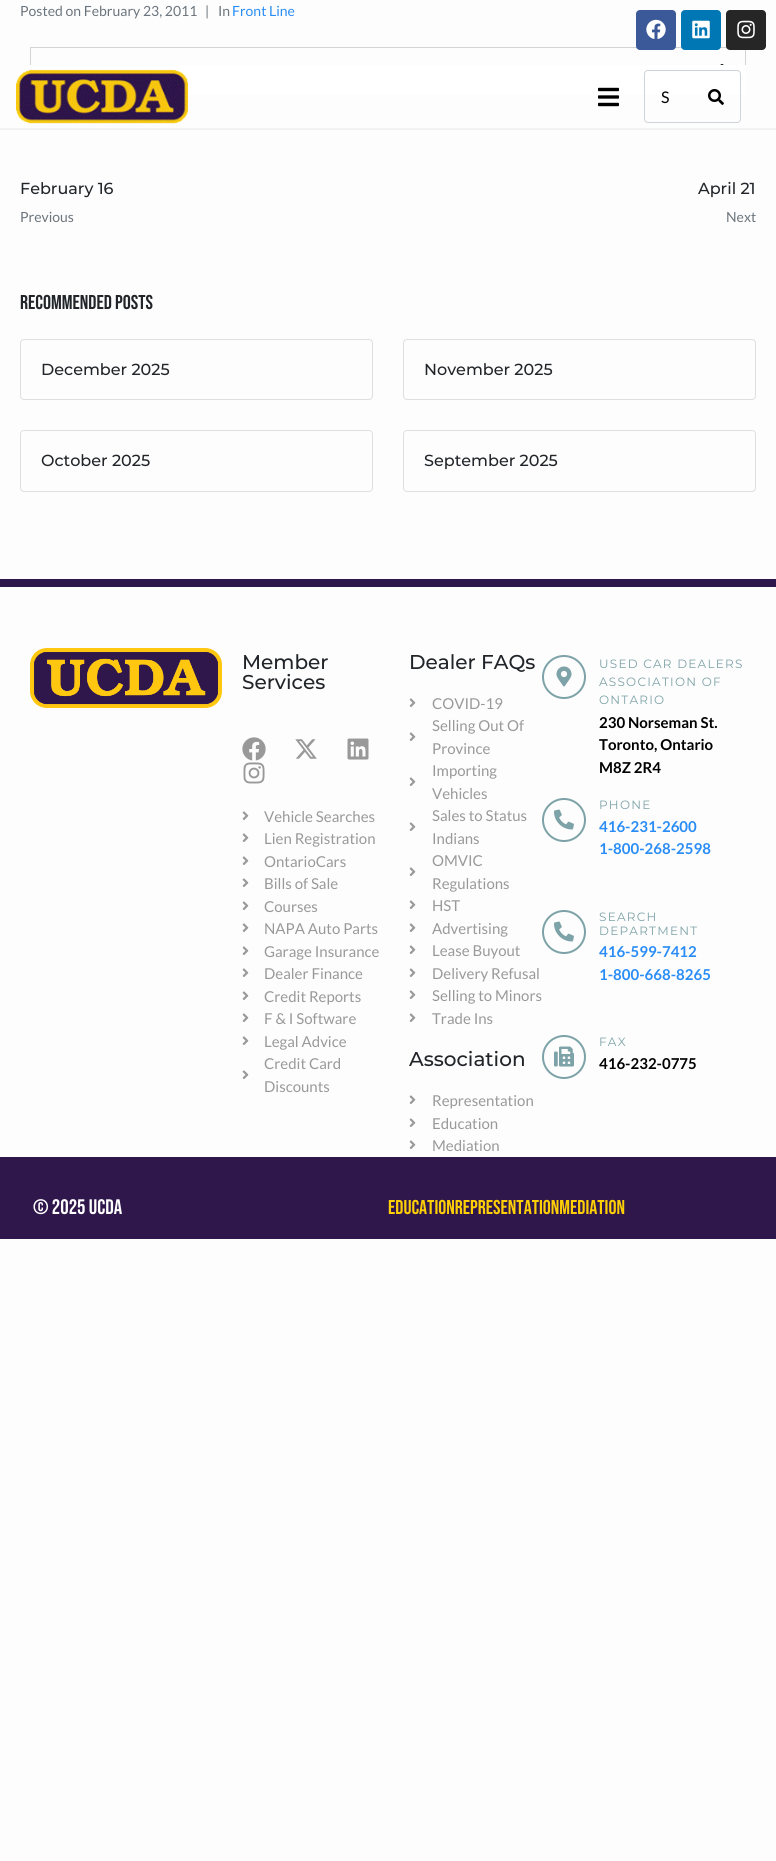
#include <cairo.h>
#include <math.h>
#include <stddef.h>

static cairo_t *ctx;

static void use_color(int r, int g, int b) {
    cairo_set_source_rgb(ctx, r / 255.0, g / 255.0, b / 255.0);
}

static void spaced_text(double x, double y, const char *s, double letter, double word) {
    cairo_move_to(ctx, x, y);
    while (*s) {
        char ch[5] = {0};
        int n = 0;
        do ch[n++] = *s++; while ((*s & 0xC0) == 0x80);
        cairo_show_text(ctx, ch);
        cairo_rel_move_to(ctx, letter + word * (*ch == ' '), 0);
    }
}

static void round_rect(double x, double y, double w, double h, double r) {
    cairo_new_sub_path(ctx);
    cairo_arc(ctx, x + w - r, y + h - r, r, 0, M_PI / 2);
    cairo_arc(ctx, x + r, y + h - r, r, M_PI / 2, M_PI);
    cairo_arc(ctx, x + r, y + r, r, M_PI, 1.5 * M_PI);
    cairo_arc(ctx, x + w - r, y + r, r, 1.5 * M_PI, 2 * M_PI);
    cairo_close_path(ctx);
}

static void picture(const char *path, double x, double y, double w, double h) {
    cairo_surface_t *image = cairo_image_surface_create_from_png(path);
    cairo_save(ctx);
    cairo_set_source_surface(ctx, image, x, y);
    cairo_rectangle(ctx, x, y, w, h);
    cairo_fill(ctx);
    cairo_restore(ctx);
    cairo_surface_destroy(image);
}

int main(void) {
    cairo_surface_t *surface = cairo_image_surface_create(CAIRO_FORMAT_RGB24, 776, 1861);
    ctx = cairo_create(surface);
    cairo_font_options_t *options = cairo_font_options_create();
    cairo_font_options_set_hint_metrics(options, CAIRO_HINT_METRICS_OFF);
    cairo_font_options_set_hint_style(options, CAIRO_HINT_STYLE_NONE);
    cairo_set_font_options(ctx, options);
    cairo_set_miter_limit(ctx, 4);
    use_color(253, 253, 253);
    cairo_paint(ctx);
    cairo_select_font_face(ctx, "Lato", CAIRO_FONT_SLANT_NORMAL, CAIRO_FONT_WEIGHT_NORMAL);
    cairo_set_font_size(ctx, 14);
    use_color(108, 117, 125);
    cairo_move_to(ctx, 20, 16);
    cairo_show_text(ctx, "Posted on February 23, 2011");
    cairo_move_to(ctx, 205, 16);
    cairo_show_text(ctx, "|");
    cairo_move_to(ctx, 218, 16);
    cairo_show_text(ctx, "In");
    use_color(42, 141, 246);
    cairo_move_to(ctx, 232, 16);
    cairo_show_text(ctx, "Front Line");
    cairo_rectangle(ctx, 30.5, 47.5, 715, 47);
    use_color(212, 212, 212);
    cairo_set_line_width(ctx, 1);
    cairo_stroke(ctx);
    picture("img1.png", 720, 64, 4, 1);
    cairo_select_font_face(ctx, "Montserrat Medium", CAIRO_FONT_SLANT_NORMAL, CAIRO_FONT_WEIGHT_NORMAL);
    cairo_set_font_size(ctx, 16);
    use_color(33, 37, 41);
    cairo_move_to(ctx, 20, 194);
    cairo_show_text(ctx, "February 16");
    cairo_select_font_face(ctx, "Lato", CAIRO_FONT_SLANT_NORMAL, CAIRO_FONT_WEIGHT_NORMAL);
    cairo_set_font_size(ctx, 14);
    use_color(108, 117, 125);
    cairo_move_to(ctx, 20, 222);
    cairo_show_text(ctx, "Previous");
    cairo_select_font_face(ctx, "Montserrat Medium", CAIRO_FONT_SLANT_NORMAL, CAIRO_FONT_WEIGHT_NORMAL);
    cairo_set_font_size(ctx, 16);
    use_color(33, 37, 41);
    cairo_move_to(ctx, 698, 194);
    cairo_show_text(ctx, "April 21");
    cairo_select_font_face(ctx, "Lato", CAIRO_FONT_SLANT_NORMAL, CAIRO_FONT_WEIGHT_NORMAL);
    cairo_set_font_size(ctx, 14);
    use_color(108, 117, 125);
    cairo_move_to(ctx, 726, 222);
    cairo_show_text(ctx, "Next");
    cairo_select_font_face(ctx, "Bebas Neue", CAIRO_FONT_SLANT_NORMAL, CAIRO_FONT_WEIGHT_NORMAL);
    cairo_set_font_size(ctx, 20);
    use_color(33, 37, 41);
    cairo_move_to(ctx, 20, 309);
    cairo_show_text(ctx, "Recommended Posts");
    round_rect(20.5, 339.5, 352, 60, 3.5);
    use_color(223, 223, 223);
    cairo_stroke(ctx);
    cairo_select_font_face(ctx, "Montserrat Medium", CAIRO_FONT_SLANT_NORMAL, CAIRO_FONT_WEIGHT_NORMAL);
    cairo_set_font_size(ctx, 16);
    use_color(33, 37, 41);
    cairo_move_to(ctx, 41, 375);
    cairo_show_text(ctx, "December 2025");
    round_rect(403.5, 339.5, 352, 60, 3.5);
    use_color(223, 223, 223);
    cairo_stroke(ctx);
    use_color(33, 37, 41);
    cairo_move_to(ctx, 424, 375);
    cairo_show_text(ctx, "November 2025");
    round_rect(20.5, 430.5, 352, 61, 3.5);
    use_color(223, 223, 223);
    cairo_stroke(ctx);
    use_color(33, 37, 41);
    cairo_move_to(ctx, 41, 466);
    cairo_show_text(ctx, "October 2025");
    round_rect(403.5, 430.5, 352, 61, 3.5);
    use_color(223, 223, 223);
    cairo_stroke(ctx);
    use_color(33, 37, 41);
    cairo_move_to(ctx, 424, 466);
    cairo_show_text(ctx, "September 2025");
    use_color(59, 89, 152);
    round_rect(636, 10, 40, 40, 4);
    cairo_fill(ctx);
    picture("img2.png", 646, 19, 20, 20);
    use_color(0, 119, 181);
    round_rect(681, 10, 40, 40, 4);
    cairo_fill(ctx);
    picture("img3.png", 692, 20, 18, 19);
    use_color(38, 38, 38);
    round_rect(726, 10, 40, 40, 4);
    cairo_fill(ctx);
    picture("img4.png", 737, 20, 18, 19);
    use_color(255, 255, 255);
    cairo_rectangle(ctx, 30, 65, 716, 30);
    cairo_fill(ctx);
    use_color(242, 242, 242);
    cairo_rectangle(ctx, 0, 128, 776, 2);
    cairo_fill(ctx);
    picture("img5.png", 16, 69, 172, 55);
    picture("img6.png", 598, 87, 21, 20);
    round_rect(644.5, 70.5, 96, 52, 3.5);
    use_color(206, 212, 218);
    cairo_stroke(ctx);
    cairo_select_font_face(ctx, "Lato", CAIRO_FONT_SLANT_NORMAL, CAIRO_FONT_WEIGHT_NORMAL);
    use_color(0, 0, 0);
    cairo_move_to(ctx, 661, 103);
    cairo_show_text(ctx, "S");
    picture("img7.png", 708, 89, 16, 16);
    use_color(47, 22, 75);
    cairo_rectangle(ctx, 0, 579, 776, 8);
    cairo_fill(ctx);
    picture("img8.png", 30, 648, 192, 60);
    cairo_select_font_face(ctx, "Montserrat Medium", CAIRO_FONT_SLANT_NORMAL, CAIRO_FONT_WEIGHT_NORMAL);
    cairo_set_font_size(ctx, 20);
    use_color(33, 37, 41);
    cairo_move_to(ctx, 242, 669);
    cairo_show_text(ctx, "Member");
    cairo_move_to(ctx, 242, 689);
    cairo_show_text(ctx, "Services");
    picture("img9.png", 242, 737, 24, 24);
    picture("img10.png", 295, 739, 22, 20);
    picture("img11.png", 347, 738, 22, 22);
    picture("img12.png", 243, 762, 22, 22);
    picture("img13.png", 242, 811, 7, 9);
    cairo_select_font_face(ctx, "Lato", CAIRO_FONT_SLANT_NORMAL, CAIRO_FONT_WEIGHT_NORMAL);
    cairo_set_font_size(ctx, 15);
    use_color(153, 153, 153);
    cairo_move_to(ctx, 264, 822);
    cairo_show_text(ctx, "Vehicle Searches");
    picture("img13.png", 242, 833, 7, 9);
    cairo_move_to(ctx, 264, 844);
    cairo_show_text(ctx, "Lien Registration");
    picture("img13.png", 242, 856, 7, 9);
    cairo_move_to(ctx, 264, 867);
    cairo_show_text(ctx, "OntarioCars");
    picture("img13.png", 242, 878, 7, 9);
    cairo_move_to(ctx, 264, 889);
    cairo_show_text(ctx, "Bills of Sale");
    picture("img13.png", 242, 901, 7, 9);
    cairo_move_to(ctx, 264, 912);
    cairo_show_text(ctx, "Courses");
    picture("img13.png", 242, 923, 7, 9);
    cairo_move_to(ctx, 264, 934);
    cairo_show_text(ctx, "NAPA Auto Parts");
    picture("img13.png", 242, 946, 7, 9);
    cairo_move_to(ctx, 264, 957);
    cairo_show_text(ctx, "Garage Insurance");
    picture("img13.png", 242, 968, 7, 9);
    cairo_move_to(ctx, 264, 979);
    cairo_show_text(ctx, "Dealer Finance");
    picture("img13.png", 242, 991, 7, 9);
    cairo_move_to(ctx, 264, 1002);
    cairo_show_text(ctx, "Credit Reports");
    picture("img13.png", 242, 1013, 7, 9);
    cairo_move_to(ctx, 264, 1024);
    cairo_show_text(ctx, "F & I Software");
    picture("img13.png", 242, 1036, 7, 9);
    cairo_move_to(ctx, 264, 1047);
    cairo_show_text(ctx, "Legal Advice");
    picture("img13.png", 242, 1070, 7, 9);
    cairo_move_to(ctx, 264, 1069);
    cairo_show_text(ctx, "Credit Card");
    cairo_move_to(ctx, 264, 1092);
    cairo_show_text(ctx, "Discounts");
    cairo_select_font_face(ctx, "Montserrat Medium", CAIRO_FONT_SLANT_NORMAL, CAIRO_FONT_WEIGHT_NORMAL);
    cairo_set_font_size(ctx, 20);
    use_color(33, 37, 41);
    cairo_move_to(ctx, 409, 669);
    cairo_show_text(ctx, "Dealer FAQs");
    picture("img13.png", 409, 698, 7, 9);
    cairo_select_font_face(ctx, "Lato", CAIRO_FONT_SLANT_NORMAL, CAIRO_FONT_WEIGHT_NORMAL);
    cairo_set_font_size(ctx, 15);
    use_color(153, 153, 153);
    cairo_move_to(ctx, 432, 709);
    cairo_show_text(ctx, "COVID-19");
    picture("img13.png", 409, 732, 7, 9);
    cairo_move_to(ctx, 432, 731);
    cairo_show_text(ctx, "Selling Out Of");
    cairo_move_to(ctx, 432, 754);
    cairo_show_text(ctx, "Province");
    picture("img13.png", 409, 777, 7, 9);
    cairo_move_to(ctx, 432, 776);
    cairo_show_text(ctx, "Importing");
    cairo_move_to(ctx, 432, 799);
    cairo_show_text(ctx, "Vehicles");
    picture("img13.png", 409, 822, 7, 9);
    cairo_move_to(ctx, 432, 821);
    cairo_show_text(ctx, "Sales to Status");
    cairo_move_to(ctx, 432, 844);
    cairo_show_text(ctx, "Indians");
    picture("img13.png", 409, 867, 7, 9);
    cairo_move_to(ctx, 432, 866);
    cairo_show_text(ctx, "OMVIC");
    cairo_move_to(ctx, 432, 889);
    cairo_show_text(ctx, "Regulations");
    picture("img13.png", 409, 900, 7, 9);
    cairo_move_to(ctx, 432, 911);
    cairo_show_text(ctx, "HST");
    picture("img13.png", 409, 923, 7, 9);
    cairo_move_to(ctx, 432, 934);
    cairo_show_text(ctx, "Advertising");
    picture("img13.png", 409, 945, 7, 9);
    cairo_move_to(ctx, 432, 956);
    cairo_show_text(ctx, "Lease Buyout");
    picture("img13.png", 409, 968, 7, 9);
    cairo_move_to(ctx, 432, 979);
    cairo_show_text(ctx, "Delivery Refusal");
    picture("img13.png", 409, 990, 7, 9);
    cairo_move_to(ctx, 432, 1001);
    cairo_show_text(ctx, "Selling to Minors");
    picture("img13.png", 409, 1013, 7, 9);
    cairo_move_to(ctx, 432, 1024);
    cairo_show_text(ctx, "Trade Ins");
    cairo_select_font_face(ctx, "Montserrat Medium", CAIRO_FONT_SLANT_NORMAL, CAIRO_FONT_WEIGHT_NORMAL);
    cairo_set_font_size(ctx, 20);
    use_color(33, 37, 41);
    cairo_move_to(ctx, 409, 1066);
    cairo_show_text(ctx, "Association");
    picture("img13.png", 409, 1095, 7, 9);
    cairo_select_font_face(ctx, "Lato", CAIRO_FONT_SLANT_NORMAL, CAIRO_FONT_WEIGHT_NORMAL);
    cairo_set_font_size(ctx, 15);
    use_color(153, 153, 153);
    cairo_move_to(ctx, 432, 1106);
    cairo_show_text(ctx, "Representation");
    picture("img13.png", 409, 1118, 7, 9);
    cairo_move_to(ctx, 432, 1129);
    cairo_show_text(ctx, "Education");
    picture("img13.png", 409, 1140, 7, 9);
    cairo_move_to(ctx, 432, 1151);
    cairo_show_text(ctx, "Mediation");
    cairo_new_path(ctx);
    cairo_arc(ctx, 564, 677, 21, 0, 2 * M_PI);
    use_color(125, 162, 167);
    cairo_set_line_width(ctx, 2);
    cairo_stroke(ctx);
    picture("img14.png", 556, 666, 16, 21);
    cairo_select_font_face(ctx, "Montserrat", CAIRO_FONT_SLANT_NORMAL, CAIRO_FONT_WEIGHT_NORMAL);
    cairo_set_font_size(ctx, 12);
    spaced_text(599, 668, "USED CAR DEALERS", 1.25, 0);
    spaced_text(599, 686, "ASSOCIATION OF", 1.25, 0);
    spaced_text(599, 704, "ONTARIO", 1.25, 0);
    cairo_select_font_face(ctx, "Lato", CAIRO_FONT_SLANT_NORMAL, CAIRO_FONT_WEIGHT_BOLD);
    cairo_set_font_size(ctx, 15);
    use_color(0, 0, 0);
    cairo_move_to(ctx, 599, 728);
    cairo_show_text(ctx, "230 Norseman St.");
    cairo_move_to(ctx, 599, 750);
    cairo_show_text(ctx, "Toronto, Ontario");
    cairo_move_to(ctx, 599, 773);
    cairo_show_text(ctx, "M8Z 2R4");
    cairo_new_path(ctx);
    cairo_arc(ctx, 564, 820, 21, 0, 2 * M_PI);
    use_color(125, 162, 167);
    cairo_stroke(ctx);
    picture("img15.png", 554, 809, 20, 21);
    cairo_select_font_face(ctx, "Montserrat", CAIRO_FONT_SLANT_NORMAL, CAIRO_FONT_WEIGHT_NORMAL);
    cairo_set_font_size(ctx, 12);
    spaced_text(599, 809, "PHONE", 1.25, 0);
    cairo_select_font_face(ctx, "Lato", CAIRO_FONT_SLANT_NORMAL, CAIRO_FONT_WEIGHT_BOLD);
    cairo_set_font_size(ctx, 15);
    use_color(42, 141, 246);
    cairo_move_to(ctx, 599, 832);
    cairo_show_text(ctx, "416-231-2600");
    cairo_move_to(ctx, 599, 854);
    cairo_show_text(ctx, "1-800-268-2598");
    cairo_new_path(ctx);
    cairo_arc(ctx, 564, 932, 21, 0, 2 * M_PI);
    use_color(125, 162, 167);
    cairo_stroke(ctx);
    picture("img15.png", 554, 921, 20, 21);
    cairo_select_font_face(ctx, "Montserrat", CAIRO_FONT_SLANT_NORMAL, CAIRO_FONT_WEIGHT_NORMAL);
    cairo_set_font_size(ctx, 12);
    spaced_text(599, 921, "SEARCH", 1.25, 0);
    spaced_text(599, 935, "DEPARTMENT", 1.25, 0);
    cairo_select_font_face(ctx, "Lato", CAIRO_FONT_SLANT_NORMAL, CAIRO_FONT_WEIGHT_BOLD);
    cairo_set_font_size(ctx, 15);
    use_color(42, 141, 246);
    cairo_move_to(ctx, 599, 957);
    cairo_show_text(ctx, "416-599-7412");
    cairo_move_to(ctx, 599, 980);
    cairo_show_text(ctx, "1-800-668-8265");
    cairo_new_path(ctx);
    cairo_arc(ctx, 564, 1057, 21, 0, 2 * M_PI);
    use_color(125, 162, 167);
    cairo_stroke(ctx);
    picture("img16.png", 554, 1046, 20, 21);
    cairo_select_font_face(ctx, "Montserrat", CAIRO_FONT_SLANT_NORMAL, CAIRO_FONT_WEIGHT_NORMAL);
    cairo_set_font_size(ctx, 12);
    spaced_text(599, 1046, "FAX", 1.25, 0);
    cairo_select_font_face(ctx, "Lato", CAIRO_FONT_SLANT_NORMAL, CAIRO_FONT_WEIGHT_BOLD);
    cairo_set_font_size(ctx, 15);
    use_color(0, 0, 0);
    cairo_move_to(ctx, 599, 1069);
    cairo_show_text(ctx, "416-232-0775");
    use_color(47, 22, 75);
    cairo_rectangle(ctx, 0, 1157, 776, 82);
    cairo_fill(ctx);
    cairo_select_font_face(ctx, "Bebas Neue", CAIRO_FONT_SLANT_NORMAL, CAIRO_FONT_WEIGHT_NORMAL);
    cairo_set_font_size(ctx, 21);
    use_color(255, 255, 255);
    cairo_move_to(ctx, 33, 1214);
    cairo_show_text(ctx, "© 2025 UCDA");
    cairo_set_font_size(ctx, 20);
    use_color(255, 207, 6);
    cairo_move_to(ctx, 388, 1214);
    cairo_show_text(ctx, "EducationRepresentationMediation");
    cairo_surface_write_to_png(surface, "result.png");
    cairo_font_options_destroy(options);
    cairo_destroy(ctx);
    cairo_surface_destroy(surface);
    return 0;
}
